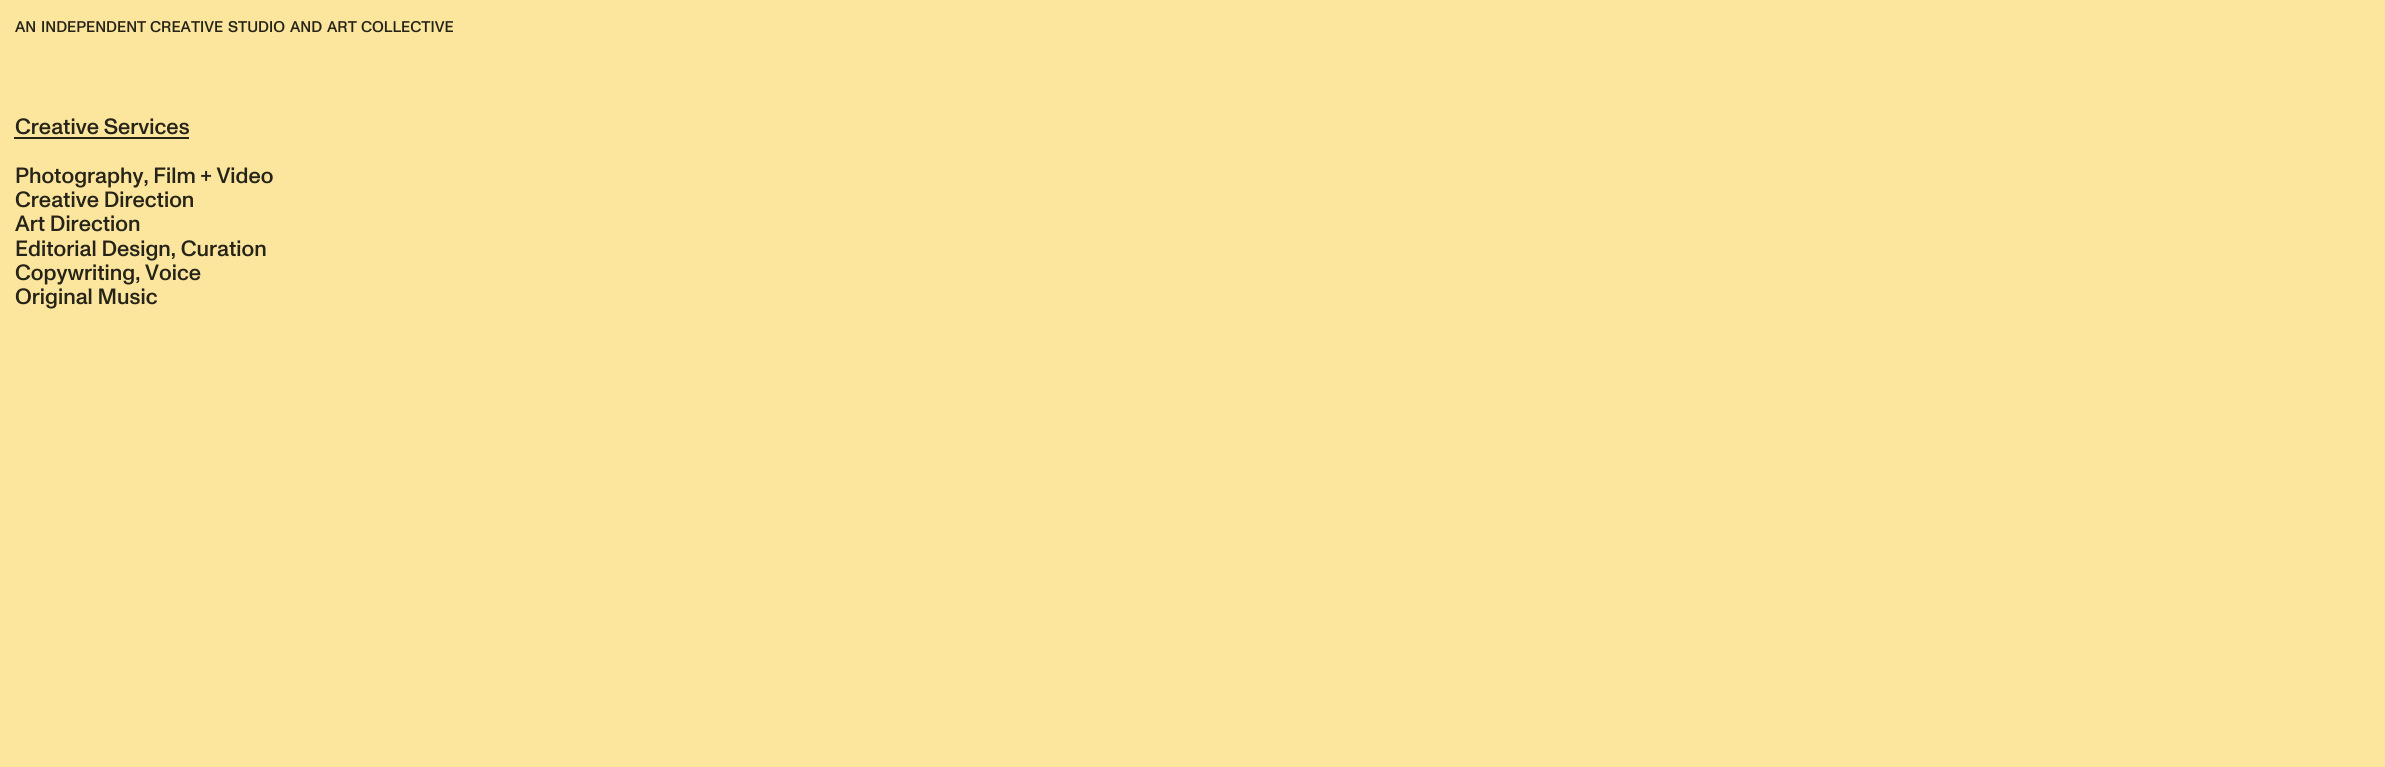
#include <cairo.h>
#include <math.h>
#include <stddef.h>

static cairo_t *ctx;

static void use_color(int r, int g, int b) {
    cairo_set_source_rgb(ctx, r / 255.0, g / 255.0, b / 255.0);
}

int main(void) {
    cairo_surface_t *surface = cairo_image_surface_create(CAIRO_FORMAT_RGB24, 2385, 767);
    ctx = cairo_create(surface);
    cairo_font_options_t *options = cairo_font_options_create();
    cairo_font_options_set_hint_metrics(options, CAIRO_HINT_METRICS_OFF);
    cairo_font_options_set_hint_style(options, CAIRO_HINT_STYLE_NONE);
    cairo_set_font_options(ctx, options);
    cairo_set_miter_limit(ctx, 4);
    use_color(252, 230, 157);
    cairo_paint(ctx);
    cairo_select_font_face(ctx, "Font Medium", CAIRO_FONT_SLANT_NORMAL, CAIRO_FONT_WEIGHT_NORMAL);
    cairo_set_font_size(ctx, 15.5);
    use_color(38, 35, 24);
    cairo_move_to(ctx, 15, 32);
    cairo_show_text(ctx, "AN");
    cairo_move_to(ctx, 41, 32);
    cairo_show_text(ctx, "INDEPENDENT");
    cairo_move_to(ctx, 150, 32);
    cairo_show_text(ctx, "CREATIVE");
    cairo_move_to(ctx, 228, 32);
    cairo_show_text(ctx, "STUDIO");
    cairo_move_to(ctx, 290, 32);
    cairo_show_text(ctx, "AND");
    cairo_move_to(ctx, 327, 32);
    cairo_show_text(ctx, "ART");
    cairo_move_to(ctx, 361, 32);
    cairo_show_text(ctx, "COLLECTIVE");
    cairo_set_font_size(ctx, 22.1);
    cairo_move_to(ctx, 15, 134);
    cairo_show_text(ctx, "Creative Services");
    cairo_rectangle(ctx, 14, 137, 175, 2);
    cairo_fill(ctx);
    cairo_move_to(ctx, 15, 183);
    cairo_show_text(ctx, "Photography, Film + Video");
    cairo_move_to(ctx, 15, 207);
    cairo_show_text(ctx, "Creative Direction");
    cairo_move_to(ctx, 15, 231);
    cairo_show_text(ctx, "Art Direction");
    cairo_move_to(ctx, 15, 256);
    cairo_show_text(ctx, "Editorial Design, Curation");
    cairo_move_to(ctx, 15, 280);
    cairo_show_text(ctx, "Copywriting, Voice");
    cairo_move_to(ctx, 15, 304);
    cairo_show_text(ctx, "Original Music");
    cairo_surface_write_to_png(surface, "result.png");
    cairo_font_options_destroy(options);
    cairo_destroy(ctx);
    cairo_surface_destroy(surface);
    return 0;
}
